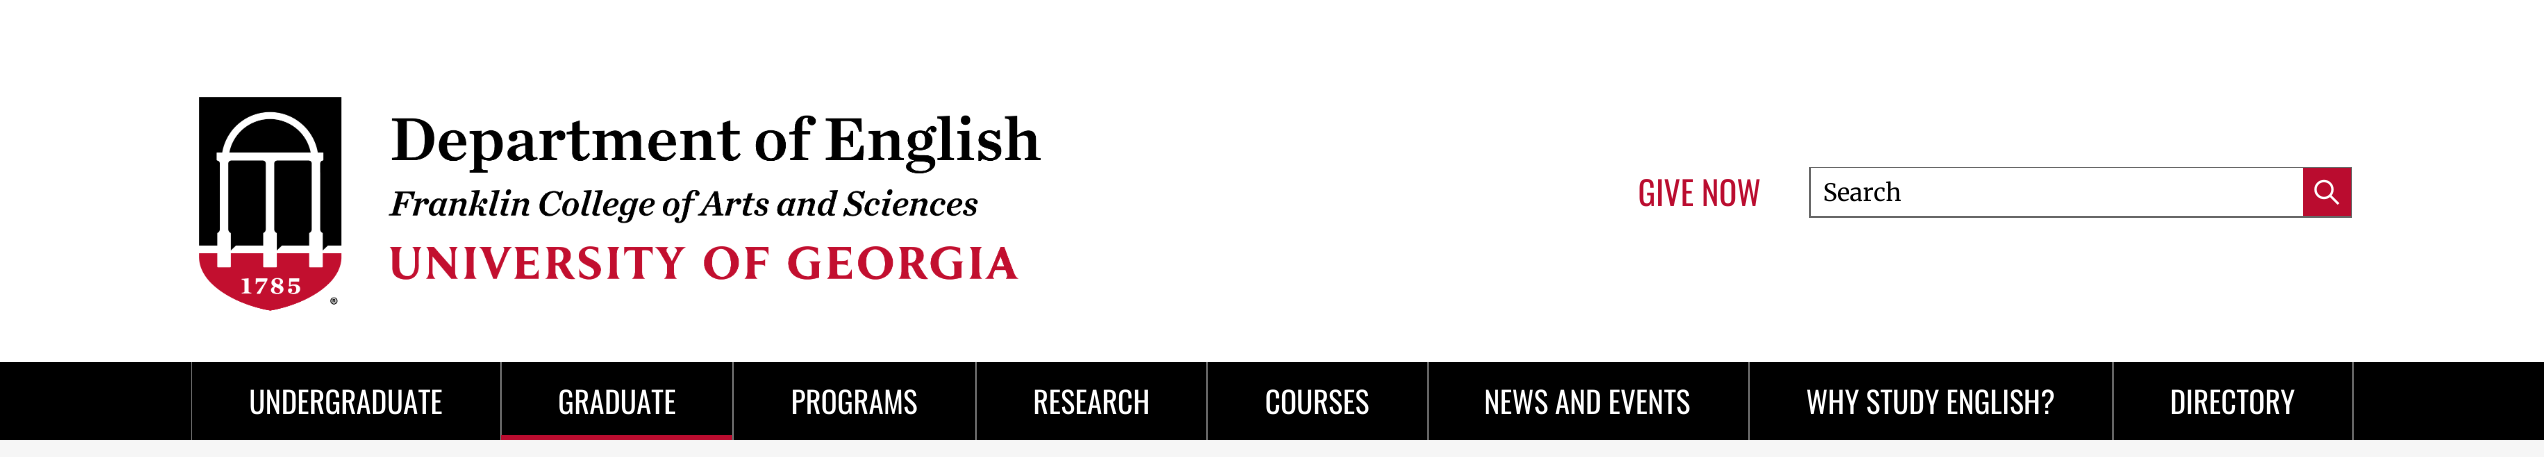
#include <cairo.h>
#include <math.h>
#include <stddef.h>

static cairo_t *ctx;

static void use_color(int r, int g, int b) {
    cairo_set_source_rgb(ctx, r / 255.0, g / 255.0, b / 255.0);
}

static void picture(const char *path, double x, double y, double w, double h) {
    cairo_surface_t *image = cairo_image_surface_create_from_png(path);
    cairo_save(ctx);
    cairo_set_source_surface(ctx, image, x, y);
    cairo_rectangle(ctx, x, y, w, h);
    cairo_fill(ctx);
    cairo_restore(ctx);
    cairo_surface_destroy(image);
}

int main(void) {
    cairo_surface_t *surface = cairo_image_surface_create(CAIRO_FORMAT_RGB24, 2544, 457);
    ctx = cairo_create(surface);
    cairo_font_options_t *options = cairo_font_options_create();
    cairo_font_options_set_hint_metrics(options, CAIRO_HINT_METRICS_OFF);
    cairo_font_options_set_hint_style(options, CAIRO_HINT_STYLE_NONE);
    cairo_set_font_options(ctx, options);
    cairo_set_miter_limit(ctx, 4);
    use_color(255, 255, 255);
    cairo_paint(ctx);
    picture("img1.png", 199, 97, 842, 214);
    cairo_select_font_face(ctx, "Oswald", CAIRO_FONT_SLANT_NORMAL, CAIRO_FONT_WEIGHT_NORMAL);
    cairo_set_font_size(ctx, 33);
    use_color(186, 12, 47);
    cairo_move_to(ctx, 1638, 206);
    cairo_show_text(ctx, "GIVE NOW");
    cairo_rectangle(ctx, 1810, 168, 541, 49);
    use_color(102, 102, 102);
    cairo_stroke(ctx);
    use_color(255, 255, 255);
    cairo_rectangle(ctx, 1811, 168, 492, 1);
    cairo_fill(ctx);
    cairo_select_font_face(ctx, "Merriweather Light", CAIRO_FONT_SLANT_NORMAL, CAIRO_FONT_WEIGHT_NORMAL);
    cairo_set_font_size(ctx, 24);
    use_color(0, 0, 0);
    cairo_move_to(ctx, 1823, 201);
    cairo_show_text(ctx, "Search");
    use_color(186, 12, 47);
    cairo_rectangle(ctx, 2303, 168, 48, 48);
    cairo_fill(ctx);
    cairo_arc(ctx, 2324, 189.5, 8.5, 0, 2 * M_PI);
    use_color(255, 255, 255);
    cairo_set_line_width(ctx, 2.4);
    cairo_stroke(ctx);
    cairo_new_path(ctx);
    cairo_move_to(ctx, 2330, 195.5);
    cairo_line_to(ctx, 2338.5, 204);
    cairo_stroke(ctx);
    use_color(0, 0, 0);
    cairo_rectangle(ctx, 0, 362, 2544, 78);
    cairo_fill(ctx);
    use_color(102, 102, 102);
    cairo_new_path(ctx);
    cairo_move_to(ctx, 191, 362);
    cairo_line_to(ctx, 191, 440);
    cairo_line_to(ctx, 2351, 440);
    cairo_line_to(ctx, 192, 440);
    cairo_line_to(ctx, 192, 362);
    cairo_close_path(ctx);
    cairo_fill(ctx);
    cairo_new_path(ctx);
    cairo_move_to(ctx, 194, 440);
    cairo_line_to(ctx, 2354, 440);
    cairo_line_to(ctx, 2354, 362);
    cairo_line_to(ctx, 2352, 362);
    cairo_line_to(ctx, 2352, 440);
    cairo_close_path(ctx);
    cairo_fill(ctx);
    cairo_select_font_face(ctx, "Oswald", CAIRO_FONT_SLANT_NORMAL, CAIRO_FONT_WEIGHT_NORMAL);
    cairo_set_font_size(ctx, 30);
    use_color(255, 255, 255);
    cairo_move_to(ctx, 249, 414);
    cairo_show_text(ctx, "UNDERGRADUATE");
    use_color(102, 102, 102);
    cairo_rectangle(ctx, 500, 362, 2, 78);
    cairo_fill(ctx);
    use_color(186, 12, 47);
    cairo_rectangle(ctx, 501, 435, 231, 5);
    cairo_fill(ctx);
    use_color(255, 255, 255);
    cairo_move_to(ctx, 558, 414);
    cairo_show_text(ctx, "GRADUATE");
    use_color(102, 102, 102);
    cairo_rectangle(ctx, 732, 362, 2, 78);
    cairo_fill(ctx);
    use_color(255, 255, 255);
    cairo_move_to(ctx, 791, 414);
    cairo_show_text(ctx, "PROGRAMS");
    use_color(102, 102, 102);
    cairo_rectangle(ctx, 975, 362, 2, 78);
    cairo_fill(ctx);
    use_color(255, 255, 255);
    cairo_move_to(ctx, 1033, 414);
    cairo_show_text(ctx, "RESEARCH");
    use_color(102, 102, 102);
    cairo_rectangle(ctx, 1206, 362, 2, 78);
    cairo_fill(ctx);
    use_color(255, 255, 255);
    cairo_move_to(ctx, 1265, 414);
    cairo_show_text(ctx, "COURSES");
    use_color(102, 102, 102);
    cairo_rectangle(ctx, 1427, 362, 2, 78);
    cairo_fill(ctx);
    use_color(255, 255, 255);
    cairo_move_to(ctx, 1484, 414);
    cairo_show_text(ctx, "NEWS AND EVENTS");
    use_color(102, 102, 102);
    cairo_rectangle(ctx, 1748, 362, 2, 78);
    cairo_fill(ctx);
    use_color(255, 255, 255);
    cairo_move_to(ctx, 1806, 414);
    cairo_show_text(ctx, "WHY STUDY ENGLISH?");
    use_color(102, 102, 102);
    cairo_rectangle(ctx, 2112, 362, 2, 78);
    cairo_fill(ctx);
    use_color(255, 255, 255);
    cairo_move_to(ctx, 2170, 414);
    cairo_show_text(ctx, "DIRECTORY");
    use_color(246, 246, 246);
    cairo_rectangle(ctx, 0, 440, 2544, 17);
    cairo_fill(ctx);
    cairo_surface_write_to_png(surface, "result.png");
    cairo_font_options_destroy(options);
    cairo_destroy(ctx);
    cairo_surface_destroy(surface);
    return 0;
}
